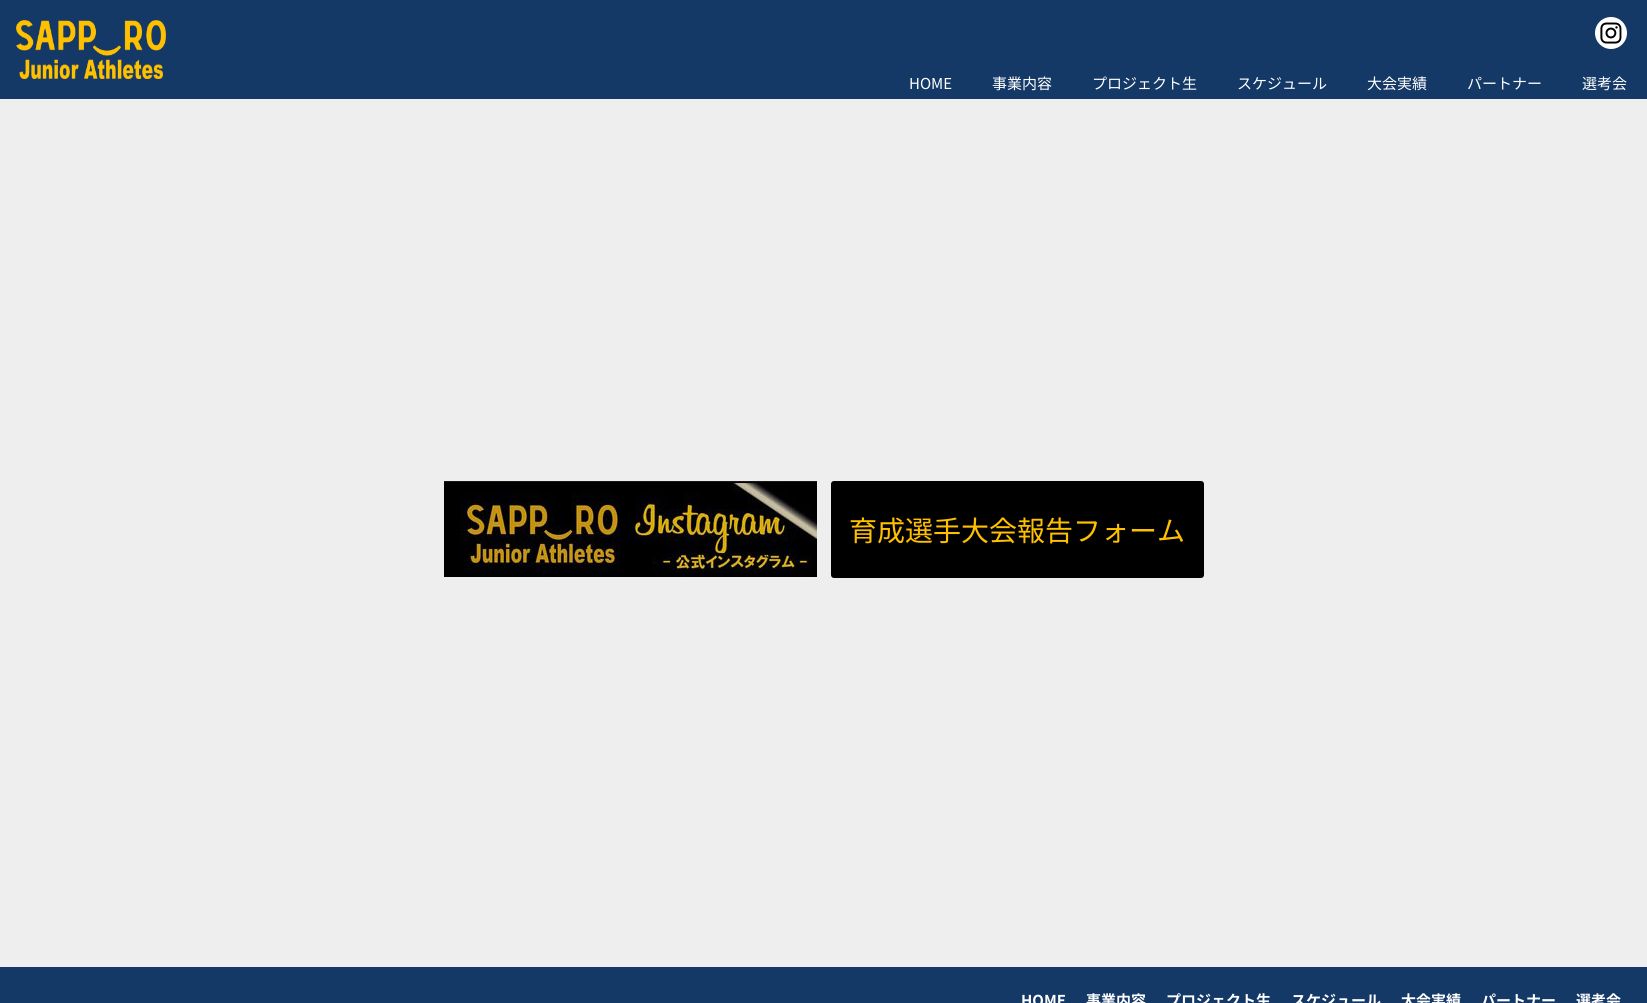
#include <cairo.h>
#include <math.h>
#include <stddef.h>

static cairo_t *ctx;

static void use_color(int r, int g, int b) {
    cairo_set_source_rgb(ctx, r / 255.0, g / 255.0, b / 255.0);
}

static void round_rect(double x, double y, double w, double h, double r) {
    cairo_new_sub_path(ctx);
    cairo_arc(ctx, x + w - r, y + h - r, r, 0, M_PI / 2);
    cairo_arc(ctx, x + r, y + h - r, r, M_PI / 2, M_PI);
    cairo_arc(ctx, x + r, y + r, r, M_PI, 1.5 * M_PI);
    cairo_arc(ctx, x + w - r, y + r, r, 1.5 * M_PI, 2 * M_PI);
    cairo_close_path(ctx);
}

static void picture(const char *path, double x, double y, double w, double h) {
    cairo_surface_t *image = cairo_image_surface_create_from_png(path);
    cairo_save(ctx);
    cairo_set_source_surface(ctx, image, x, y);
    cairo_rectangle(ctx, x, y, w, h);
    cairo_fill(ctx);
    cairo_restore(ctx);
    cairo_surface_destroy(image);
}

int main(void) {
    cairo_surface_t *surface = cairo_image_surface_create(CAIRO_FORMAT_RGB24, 1647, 1003);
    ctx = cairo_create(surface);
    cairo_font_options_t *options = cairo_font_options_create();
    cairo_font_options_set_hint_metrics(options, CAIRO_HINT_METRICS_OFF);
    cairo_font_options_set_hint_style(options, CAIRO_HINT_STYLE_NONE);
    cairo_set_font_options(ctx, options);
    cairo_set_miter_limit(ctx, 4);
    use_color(238, 238, 238);
    cairo_paint(ctx);
    use_color(20, 57, 102);
    cairo_rectangle(ctx, 0, 0, 1647, 99);
    cairo_fill(ctx);
    picture("img1.png", 16, 20, 150, 59);
    picture("img2.png", 1595, 17, 32, 32);
    cairo_select_font_face(ctx, "Noto Sans JP", CAIRO_FONT_SLANT_NORMAL, CAIRO_FONT_WEIGHT_NORMAL);
    cairo_set_font_size(ctx, 15);
    use_color(255, 255, 255);
    cairo_move_to(ctx, 909, 89);
    cairo_show_text(ctx, "HOME");
    cairo_move_to(ctx, 992, 89);
    cairo_show_text(ctx, "事業内容");
    cairo_move_to(ctx, 1092, 89);
    cairo_show_text(ctx, "プロジェクト生");
    cairo_move_to(ctx, 1237, 89);
    cairo_show_text(ctx, "スケジュール");
    cairo_move_to(ctx, 1367, 89);
    cairo_show_text(ctx, "大会実績");
    cairo_move_to(ctx, 1467, 89);
    cairo_show_text(ctx, "パートナー");
    cairo_move_to(ctx, 1582, 89);
    cairo_show_text(ctx, "選考会");
    picture("img3.png", 444, 481, 373, 96);
    use_color(0, 0, 0);
    round_rect(832, 482, 371, 95, 2);
    cairo_fill_preserve(ctx);
    cairo_stroke(ctx);
    cairo_set_font_size(ctx, 28);
    use_color(255, 192, 0);
    cairo_move_to(ctx, 849, 541);
    cairo_show_text(ctx, "育成選手大会報告フォーム");
    use_color(20, 57, 102);
    cairo_rectangle(ctx, 0, 967, 1647, 36);
    cairo_fill(ctx);
    cairo_select_font_face(ctx, "Noto Sans JP", CAIRO_FONT_SLANT_NORMAL, CAIRO_FONT_WEIGHT_BOLD);
    cairo_set_font_size(ctx, 15);
    use_color(255, 255, 255);
    cairo_move_to(ctx, 1021, 1006);
    cairo_show_text(ctx, "HOME");
    cairo_move_to(ctx, 1086, 1006);
    cairo_show_text(ctx, "事業内容");
    cairo_move_to(ctx, 1166, 1006);
    cairo_show_text(ctx, "プロジェクト生");
    cairo_move_to(ctx, 1291, 1006);
    cairo_show_text(ctx, "スケジュール");
    cairo_move_to(ctx, 1401, 1006);
    cairo_show_text(ctx, "大会実績");
    cairo_move_to(ctx, 1481, 1006);
    cairo_show_text(ctx, "パートナー");
    cairo_move_to(ctx, 1576, 1006);
    cairo_show_text(ctx, "選考会");
    cairo_surface_write_to_png(surface, "result.png");
    cairo_font_options_destroy(options);
    cairo_destroy(ctx);
    cairo_surface_destroy(surface);
    return 0;
}
